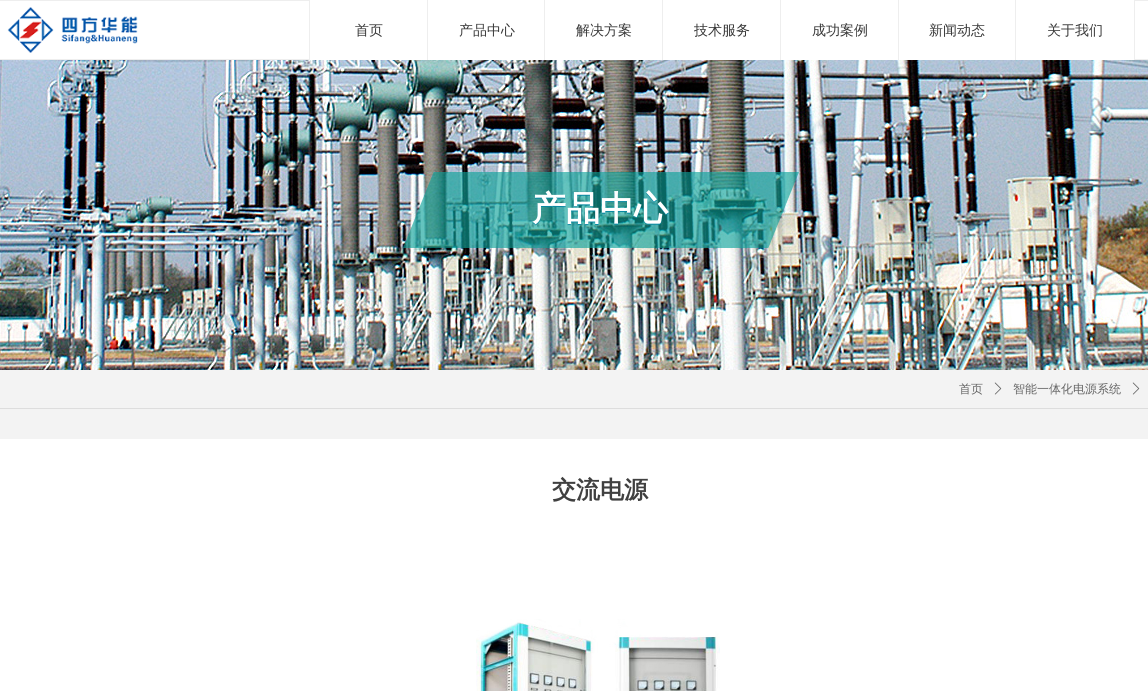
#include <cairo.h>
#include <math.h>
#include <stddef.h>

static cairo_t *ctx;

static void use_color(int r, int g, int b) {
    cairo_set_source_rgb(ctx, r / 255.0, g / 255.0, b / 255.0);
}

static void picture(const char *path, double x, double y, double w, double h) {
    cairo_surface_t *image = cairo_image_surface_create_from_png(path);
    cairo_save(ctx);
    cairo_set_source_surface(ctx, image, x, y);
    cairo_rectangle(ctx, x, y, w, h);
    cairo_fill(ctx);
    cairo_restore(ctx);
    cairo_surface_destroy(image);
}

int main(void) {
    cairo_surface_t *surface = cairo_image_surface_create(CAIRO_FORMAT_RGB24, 1148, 691);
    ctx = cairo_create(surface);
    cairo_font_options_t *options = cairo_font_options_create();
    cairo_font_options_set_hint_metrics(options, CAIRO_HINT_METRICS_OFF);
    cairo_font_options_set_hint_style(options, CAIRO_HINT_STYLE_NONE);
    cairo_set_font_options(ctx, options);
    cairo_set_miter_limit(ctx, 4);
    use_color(255, 255, 255);
    cairo_paint(ctx);
    use_color(238, 238, 238);
    cairo_rectangle(ctx, 0, 0, 1148, 1);
    cairo_fill(ctx);
    cairo_rectangle(ctx, 0, 59, 1148, 1);
    cairo_fill(ctx);
    picture("img1.png", 7, 7, 131, 46);
    cairo_rectangle(ctx, 1134, 0, 1, 60);
    cairo_fill(ctx);
    cairo_rectangle(ctx, 309, 0, 1, 60);
    cairo_fill(ctx);
    use_color(255, 255, 255);
    cairo_rectangle(ctx, 310, 0, 117, 60);
    cairo_fill(ctx);
    cairo_select_font_face(ctx, "WenQuanYi Zen Hei Medium", CAIRO_FONT_SLANT_NORMAL, CAIRO_FONT_WEIGHT_NORMAL);
    cairo_set_font_size(ctx, 14);
    use_color(56, 56, 56);
    cairo_move_to(ctx, 355, 35);
    cairo_show_text(ctx, "首页");
    use_color(255, 255, 255);
    cairo_rectangle(ctx, 428, 0, 116, 60);
    cairo_fill(ctx);
    use_color(238, 238, 238);
    cairo_rectangle(ctx, 427, 0, 1, 60);
    cairo_fill(ctx);
    use_color(56, 56, 56);
    cairo_move_to(ctx, 459, 35);
    cairo_show_text(ctx, "产品中心");
    use_color(255, 255, 255);
    cairo_rectangle(ctx, 545, 0, 117, 60);
    cairo_fill(ctx);
    use_color(238, 238, 238);
    cairo_rectangle(ctx, 544, 0, 1, 60);
    cairo_fill(ctx);
    use_color(56, 56, 56);
    cairo_move_to(ctx, 576, 35);
    cairo_show_text(ctx, "解决方案");
    use_color(255, 255, 255);
    cairo_rectangle(ctx, 663, 0, 117, 60);
    cairo_fill(ctx);
    use_color(238, 238, 238);
    cairo_rectangle(ctx, 662, 0, 1, 60);
    cairo_fill(ctx);
    use_color(56, 56, 56);
    cairo_move_to(ctx, 694, 35);
    cairo_show_text(ctx, "技术服务");
    use_color(255, 255, 255);
    cairo_rectangle(ctx, 781, 0, 117, 60);
    cairo_fill(ctx);
    use_color(238, 238, 238);
    cairo_rectangle(ctx, 780, 0, 1, 60);
    cairo_fill(ctx);
    use_color(56, 56, 56);
    cairo_move_to(ctx, 812, 35);
    cairo_show_text(ctx, "成功案例");
    use_color(255, 255, 255);
    cairo_rectangle(ctx, 899, 0, 116, 60);
    cairo_fill(ctx);
    use_color(238, 238, 238);
    cairo_rectangle(ctx, 898, 0, 1, 60);
    cairo_fill(ctx);
    use_color(56, 56, 56);
    cairo_move_to(ctx, 929, 35);
    cairo_show_text(ctx, "新闻动态");
    use_color(255, 255, 255);
    cairo_rectangle(ctx, 1016, 0, 118, 60);
    cairo_fill(ctx);
    use_color(238, 238, 238);
    cairo_rectangle(ctx, 1015, 0, 1, 60);
    cairo_fill(ctx);
    use_color(56, 56, 56);
    cairo_move_to(ctx, 1047, 35);
    cairo_show_text(ctx, "关于我们");
    use_color(243, 243, 243);
    cairo_rectangle(ctx, 0, 370, 1148, 69);
    cairo_fill(ctx);
    picture("img2.png", 0, 60, 1148, 310);
    cairo_select_font_face(ctx, "WenQuanYi Zen Hei", CAIRO_FONT_SLANT_NORMAL, CAIRO_FONT_WEIGHT_BOLD);
    cairo_set_font_size(ctx, 34);
    use_color(0, 91, 172);
    cairo_move_to(ctx, 532, 221);
    cairo_show_text(ctx, "产品中心");
    picture("img3.png", 403, 172, 396, 76);
    use_color(255, 255, 255);
    cairo_move_to(ctx, 532, 220);
    cairo_show_text(ctx, "产品中心");
    cairo_select_font_face(ctx, "WenQuanYi Zen Hei Medium", CAIRO_FONT_SLANT_NORMAL, CAIRO_FONT_WEIGHT_NORMAL);
    cairo_set_font_size(ctx, 12);
    use_color(102, 102, 102);
    cairo_move_to(ctx, 959, 393);
    cairo_show_text(ctx, "首页");
    picture("img4.png", 994, 382, 8, 13);
    cairo_move_to(ctx, 1013, 393);
    cairo_show_text(ctx, "智能一体化电源系统");
    picture("img4.png", 1132, 382, 8, 13);
    use_color(221, 221, 221);
    cairo_rectangle(ctx, 0, 408, 1148, 1);
    cairo_fill(ctx);
    cairo_select_font_face(ctx, "WenQuanYi Zen Hei", CAIRO_FONT_SLANT_NORMAL, CAIRO_FONT_WEIGHT_BOLD);
    cairo_set_font_size(ctx, 24);
    use_color(64, 64, 64);
    cairo_move_to(ctx, 552, 498);
    cairo_show_text(ctx, "交流电源");
    picture("img5.png", 476, 619, 244, 72);
    cairo_surface_write_to_png(surface, "result.png");
    cairo_font_options_destroy(options);
    cairo_destroy(ctx);
    cairo_surface_destroy(surface);
    return 0;
}
